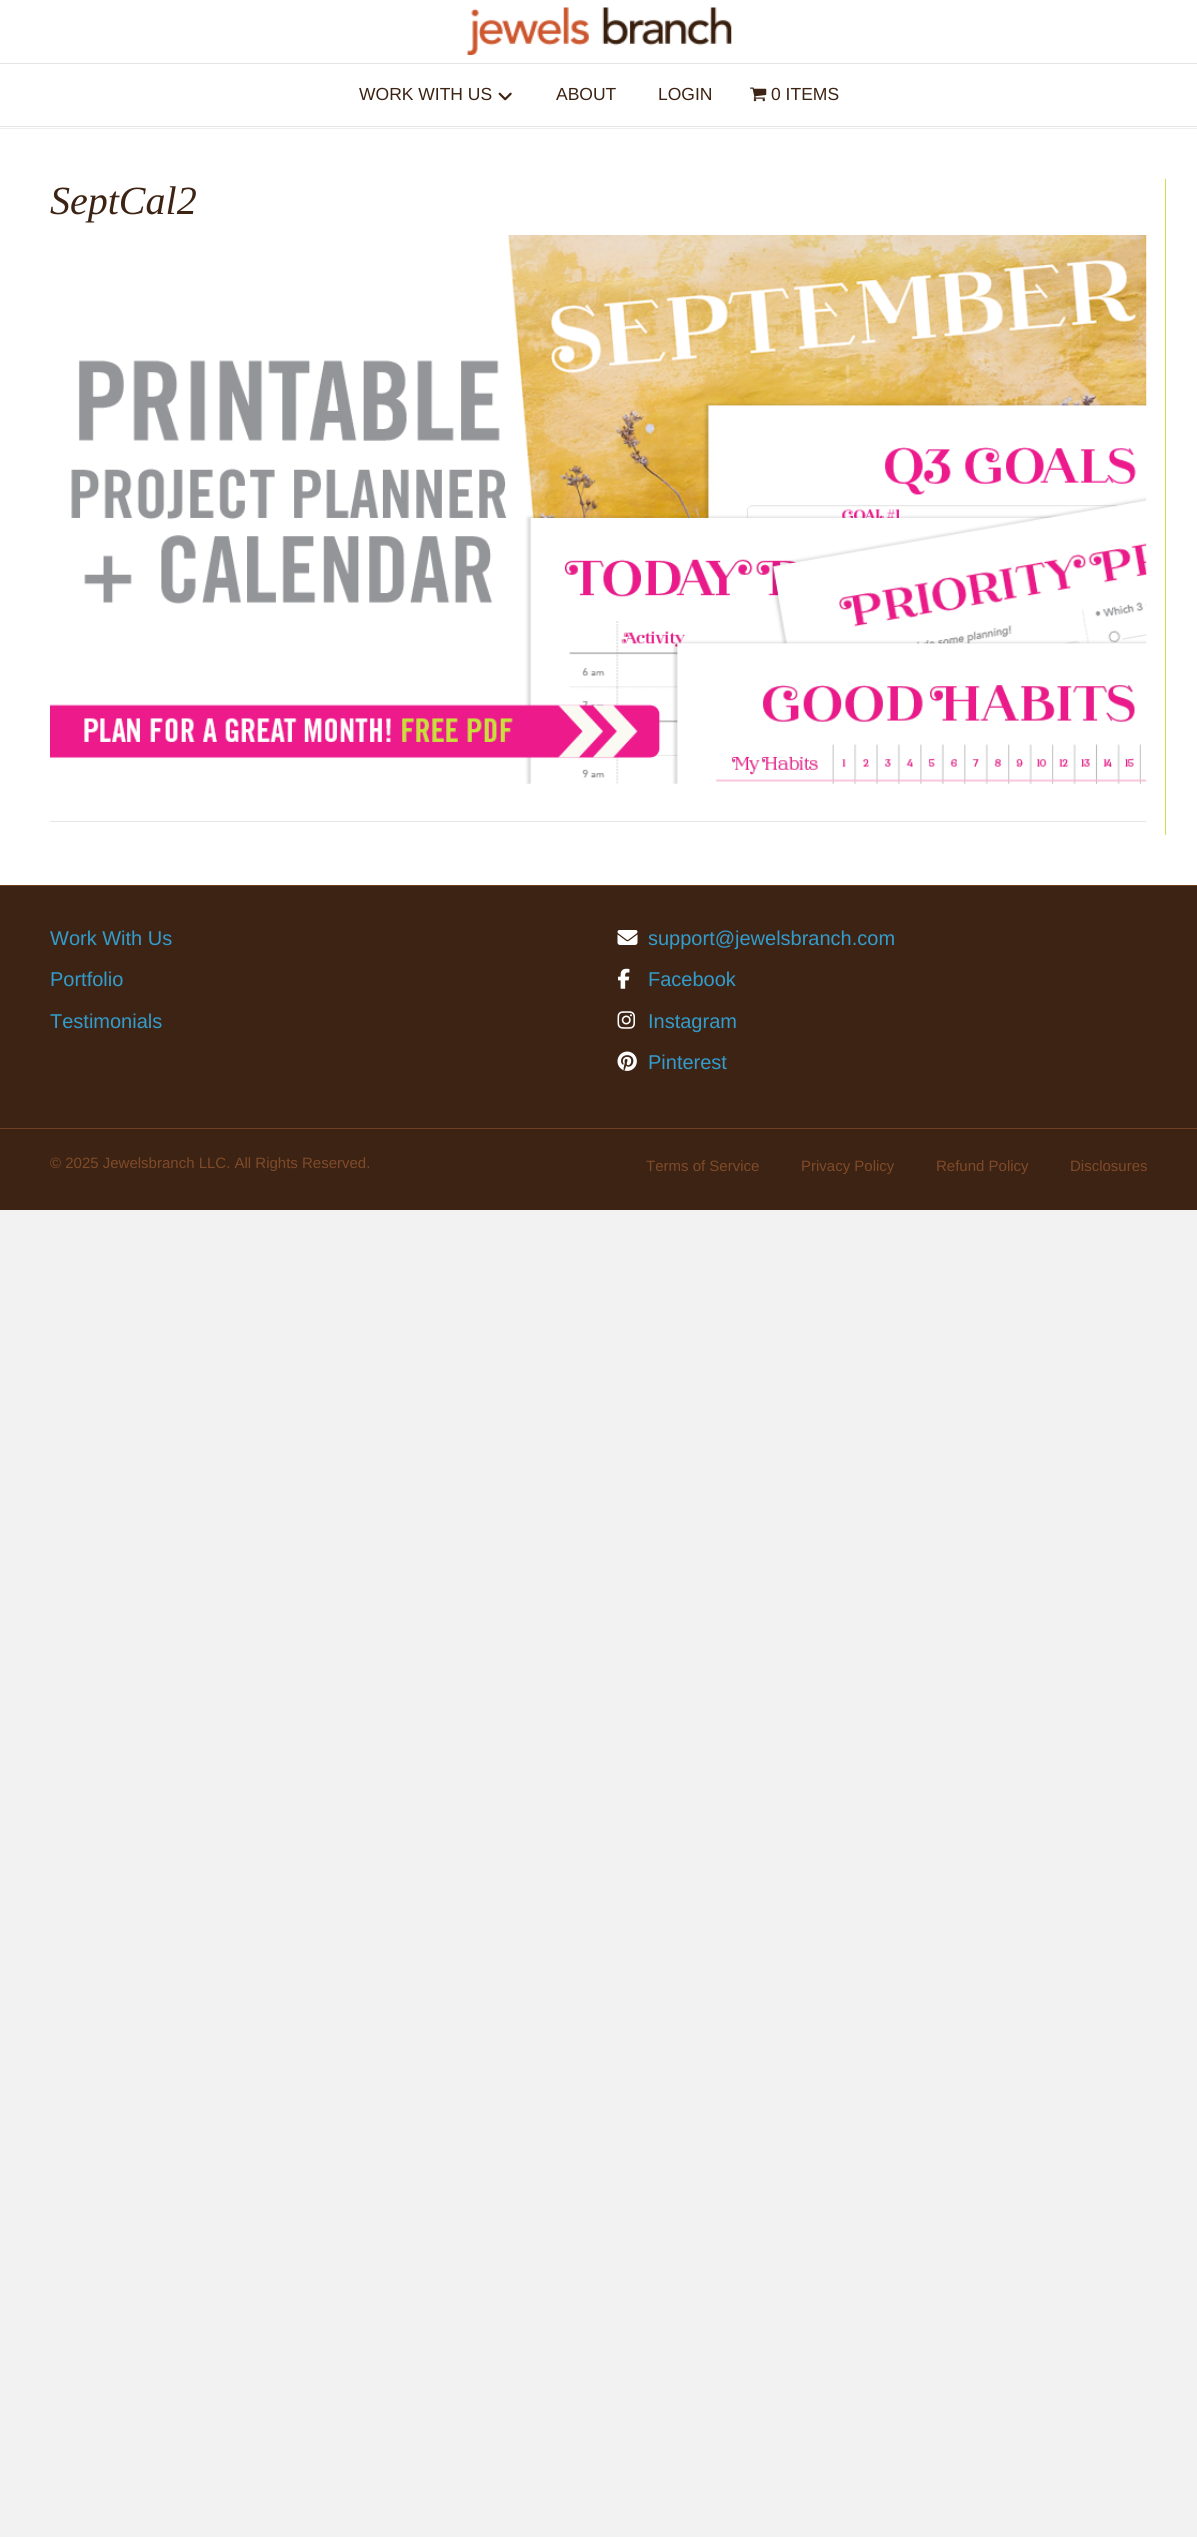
#include <cairo.h>
#include <math.h>
#include <stddef.h>

static cairo_t *ctx;

static void use_color(int r, int g, int b) {
    cairo_set_source_rgb(ctx, r / 255.0, g / 255.0, b / 255.0);
}

static void picture(const char *path, double x, double y, double w, double h) {
    cairo_surface_t *image = cairo_image_surface_create_from_png(path);
    cairo_save(ctx);
    cairo_set_source_surface(ctx, image, x, y);
    cairo_rectangle(ctx, x, y, w, h);
    cairo_fill(ctx);
    cairo_restore(ctx);
    cairo_surface_destroy(image);
}

int main(void) {
    cairo_surface_t *surface = cairo_image_surface_create(CAIRO_FORMAT_RGB24, 1197, 2537);
    ctx = cairo_create(surface);
    cairo_font_options_t *options = cairo_font_options_create();
    cairo_font_options_set_hint_metrics(options, CAIRO_HINT_METRICS_OFF);
    cairo_font_options_set_hint_style(options, CAIRO_HINT_STYLE_NONE);
    cairo_set_font_options(ctx, options);
    cairo_set_miter_limit(ctx, 4);
    use_color(242, 242, 242);
    cairo_paint(ctx);
    use_color(255, 255, 255);
    cairo_rectangle(ctx, 0, 0, 1197, 128);
    cairo_fill(ctx);
    use_color(238, 238, 238);
    cairo_rectangle(ctx, 0, 128, 1197, 1);
    cairo_fill(ctx);
    picture("img1.png", 467, 7, 265, 48);
    use_color(230, 230, 230);
    cairo_rectangle(ctx, 0, 63, 1197, 1);
    cairo_fill(ctx);
    cairo_rectangle(ctx, 0, 126, 1197, 1);
    cairo_fill(ctx);
    cairo_select_font_face(ctx, "Liberation Sans", CAIRO_FONT_SLANT_NORMAL, CAIRO_FONT_WEIGHT_NORMAL);
    cairo_set_font_size(ctx, 17.5);
    use_color(60, 35, 19);
    cairo_move_to(ctx, 359, 100);
    cairo_show_text(ctx, "WORK WITH US");
    picture("img2.png", 498, 92, 14, 9);
    cairo_move_to(ctx, 556, 100);
    cairo_show_text(ctx, "ABOUT");
    cairo_move_to(ctx, 658, 100);
    cairo_show_text(ctx, "LOGIN");
    picture("img3.png", 750, 87, 17, 15);
    cairo_move_to(ctx, 771, 100);
    cairo_show_text(ctx, "0 ITEMS");
    use_color(255, 255, 255);
    cairo_rectangle(ctx, 0, 129, 1197, 756);
    cairo_fill(ctx);
    use_color(197, 227, 79);
    cairo_rectangle(ctx, 1165, 179, 1, 656);
    cairo_fill(ctx);
    cairo_select_font_face(ctx, "Liberation Serif", CAIRO_FONT_SLANT_ITALIC, CAIRO_FONT_WEIGHT_NORMAL);
    cairo_set_font_size(ctx, 40);
    use_color(60, 35, 19);
    cairo_move_to(ctx, 50, 214);
    cairo_show_text(ctx, "SeptCal2");
    picture("img4.png", 50, 235, 1097, 549);
    use_color(230, 230, 230);
    cairo_rectangle(ctx, 50, 821, 1096, 1);
    cairo_fill(ctx);
    use_color(60, 35, 19);
    cairo_rectangle(ctx, 0, 886, 1197, 242);
    cairo_fill(ctx);
    use_color(110, 64, 35);
    cairo_rectangle(ctx, 0, 885, 1197, 1);
    cairo_fill(ctx);
    cairo_select_font_face(ctx, "Liberation Sans", CAIRO_FONT_SLANT_NORMAL, CAIRO_FONT_WEIGHT_NORMAL);
    cairo_set_font_size(ctx, 20);
    use_color(51, 156, 204);
    cairo_move_to(ctx, 50, 945);
    cairo_show_text(ctx, "Work With Us");
    cairo_move_to(ctx, 50, 986);
    cairo_show_text(ctx, "Portfolio");
    cairo_move_to(ctx, 50, 1028);
    cairo_show_text(ctx, "Testimonials");
    picture("img5.png", 617, 930, 21, 15);
    cairo_move_to(ctx, 648, 945);
    cairo_show_text(ctx, "support@jewelsbranch.com");
    picture("img6.png", 618, 968, 12, 21);
    cairo_move_to(ctx, 648, 986);
    cairo_show_text(ctx, "Facebook");
    picture("img7.png", 617, 1011, 18, 18);
    cairo_move_to(ctx, 648, 1028);
    cairo_show_text(ctx, "Instagram");
    picture("img8.png", 617, 1051, 20, 20);
    cairo_move_to(ctx, 648, 1069);
    cairo_show_text(ctx, "Pinterest");
    use_color(60, 35, 19);
    cairo_rectangle(ctx, 0, 1129, 1197, 81);
    cairo_fill(ctx);
    use_color(110, 64, 35);
    cairo_rectangle(ctx, 0, 1128, 1197, 1);
    cairo_fill(ctx);
    cairo_set_font_size(ctx, 15);
    use_color(127, 74, 41);
    cairo_move_to(ctx, 50, 1168);
    cairo_show_text(ctx, "© 2025 Jewelsbranch LLC. All Rights Reserved.");
    cairo_move_to(ctx, 646, 1171);
    cairo_show_text(ctx, "Terms of Service");
    cairo_move_to(ctx, 801, 1171);
    cairo_show_text(ctx, "Privacy Policy");
    cairo_move_to(ctx, 936, 1171);
    cairo_show_text(ctx, "Refund Policy");
    cairo_move_to(ctx, 1070, 1171);
    cairo_show_text(ctx, "Disclosures");
    cairo_surface_write_to_png(surface, "result.png");
    cairo_font_options_destroy(options);
    cairo_destroy(ctx);
    cairo_surface_destroy(surface);
    return 0;
}
